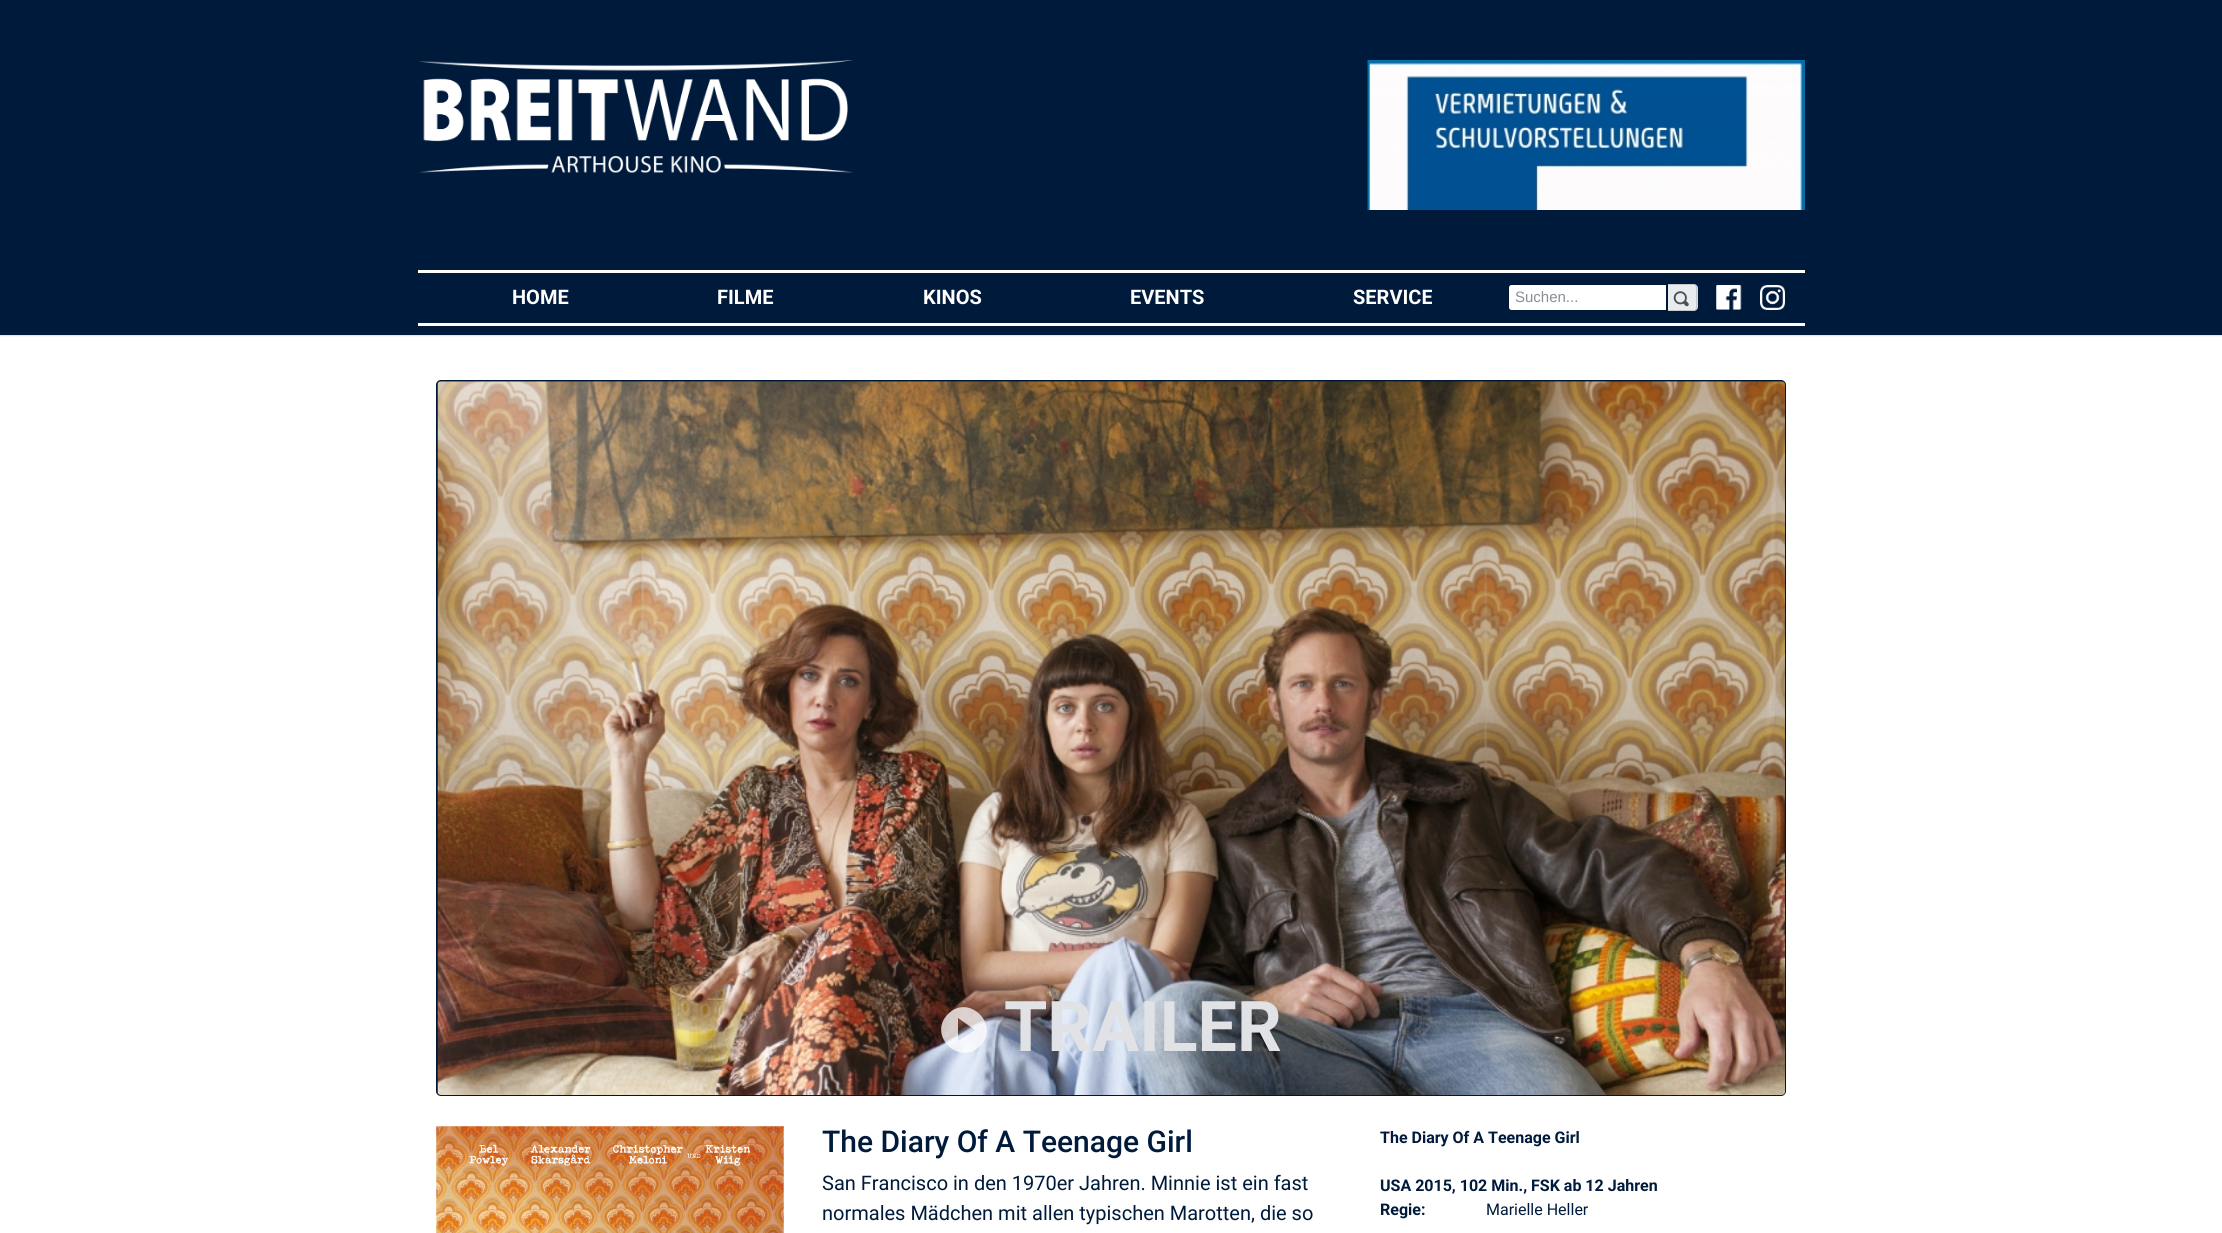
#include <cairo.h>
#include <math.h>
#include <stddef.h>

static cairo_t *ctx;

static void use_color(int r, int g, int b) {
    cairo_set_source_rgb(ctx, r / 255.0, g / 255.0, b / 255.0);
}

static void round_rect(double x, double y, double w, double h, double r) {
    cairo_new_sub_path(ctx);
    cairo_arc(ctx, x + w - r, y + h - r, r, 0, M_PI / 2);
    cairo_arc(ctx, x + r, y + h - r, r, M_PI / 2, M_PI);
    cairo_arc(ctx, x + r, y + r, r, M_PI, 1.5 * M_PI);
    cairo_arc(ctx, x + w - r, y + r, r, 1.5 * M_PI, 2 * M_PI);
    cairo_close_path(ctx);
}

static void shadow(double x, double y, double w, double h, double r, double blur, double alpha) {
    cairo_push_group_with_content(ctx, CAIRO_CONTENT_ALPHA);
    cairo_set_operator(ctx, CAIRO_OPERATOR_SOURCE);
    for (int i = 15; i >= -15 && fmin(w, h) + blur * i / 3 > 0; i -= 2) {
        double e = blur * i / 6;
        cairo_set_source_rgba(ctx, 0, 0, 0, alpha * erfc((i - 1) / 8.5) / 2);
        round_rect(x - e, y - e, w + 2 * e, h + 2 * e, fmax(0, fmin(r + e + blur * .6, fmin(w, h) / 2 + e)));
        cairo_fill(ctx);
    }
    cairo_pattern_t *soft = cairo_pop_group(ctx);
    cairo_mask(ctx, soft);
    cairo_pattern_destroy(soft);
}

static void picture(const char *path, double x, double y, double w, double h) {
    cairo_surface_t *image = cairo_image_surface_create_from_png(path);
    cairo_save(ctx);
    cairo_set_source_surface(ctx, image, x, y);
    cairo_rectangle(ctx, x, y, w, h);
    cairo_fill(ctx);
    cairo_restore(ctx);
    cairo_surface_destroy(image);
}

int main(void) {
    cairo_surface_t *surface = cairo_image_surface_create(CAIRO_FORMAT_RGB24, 2222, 1233);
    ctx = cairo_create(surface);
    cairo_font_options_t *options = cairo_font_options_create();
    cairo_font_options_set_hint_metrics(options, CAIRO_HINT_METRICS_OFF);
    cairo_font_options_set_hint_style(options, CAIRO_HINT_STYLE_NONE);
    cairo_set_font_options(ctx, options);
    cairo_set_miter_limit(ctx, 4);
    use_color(255, 255, 255);
    cairo_paint(ctx);
    use_color(0, 0, 0);
    shadow(0, 1, 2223, 335, 0, 0.5, 0.12);
    use_color(0, 26, 59);
    cairo_rectangle(ctx, 0, 0, 2222, 335);
    cairo_fill(ctx);
    picture("img1.png", 419, 60, 434, 113);
    picture("img2.png", 1367, 60, 438, 150);
    use_color(255, 255, 255);
    cairo_rectangle(ctx, 418, 270, 1387, 3);
    cairo_fill(ctx);
    cairo_rectangle(ctx, 418, 323, 1387, 3);
    cairo_fill(ctx);
    cairo_select_font_face(ctx, "Roboto", CAIRO_FONT_SLANT_NORMAL, CAIRO_FONT_WEIGHT_BOLD);
    cairo_set_font_size(ctx, 20);
    cairo_move_to(ctx, 512, 304);
    cairo_show_text(ctx, "HOME");
    cairo_move_to(ctx, 717, 304);
    cairo_show_text(ctx, "FILME");
    cairo_move_to(ctx, 923, 304);
    cairo_show_text(ctx, "KINOS");
    cairo_move_to(ctx, 1130, 304);
    cairo_show_text(ctx, "EVENTS");
    cairo_move_to(ctx, 1353, 304);
    cairo_show_text(ctx, "SERVICE");
    cairo_new_path(ctx);
    cairo_move_to(ctx, 1511.5, 285);
    cairo_line_to(ctx, 1666, 285);
    cairo_line_to(ctx, 1666, 310);
    cairo_line_to(ctx, 1511.5, 310);
    cairo_curve_to(ctx, 1510, 310, 1509, 309, 1509, 307.5);
    cairo_line_to(ctx, 1509, 287.5);
    cairo_curve_to(ctx, 1509, 286, 1510, 285, 1511.5, 285);
    cairo_close_path(ctx);
    cairo_fill(ctx);
    use_color(233, 236, 239);
    cairo_new_path(ctx);
    cairo_move_to(ctx, 1668, 284);
    cairo_line_to(ctx, 1694, 284);
    cairo_curve_to(ctx, 1696, 284, 1698, 286, 1698, 288);
    cairo_line_to(ctx, 1698, 307);
    cairo_curve_to(ctx, 1698, 309, 1696, 311, 1694, 311);
    cairo_line_to(ctx, 1668, 311);
    cairo_close_path(ctx);
    cairo_fill(ctx);
    cairo_set_source_rgba(ctx, 0, 0, 0, 0.15);
    cairo_set_fill_rule(ctx, CAIRO_FILL_RULE_EVEN_ODD);
    cairo_new_path(ctx);
    cairo_move_to(ctx, 1667.5, 284);
    cairo_line_to(ctx, 1694, 284);
    cairo_curve_to(ctx, 1696, 284, 1697.5, 285.5, 1697.5, 287.5);
    cairo_line_to(ctx, 1697.5, 307.5);
    cairo_curve_to(ctx, 1697.5, 309.5, 1696, 311, 1694, 311);
    cairo_line_to(ctx, 1667.5, 311);
    cairo_close_path(ctx);
    cairo_move_to(ctx, 1667.5, 285);
    cairo_line_to(ctx, 1694, 285);
    cairo_curve_to(ctx, 1695, 285, 1696, 286, 1696, 287.5);
    cairo_line_to(ctx, 1696, 307.5);
    cairo_curve_to(ctx, 1696, 309, 1695, 310, 1694, 310);
    cairo_line_to(ctx, 1667.5, 310);
    cairo_close_path(ctx);
    cairo_fill(ctx);
    cairo_new_path(ctx);
    cairo_move_to(ctx, 1512, 284.5);
    cairo_line_to(ctx, 1667.5, 284.5);
    cairo_line_to(ctx, 1667.5, 310.5);
    cairo_line_to(ctx, 1512, 310.5);
    cairo_curve_to(ctx, 1510, 310.5, 1508.5, 309, 1508.5, 307);
    cairo_line_to(ctx, 1508.5, 288);
    cairo_curve_to(ctx, 1508.5, 286, 1510, 284.5, 1512, 284.5);
    cairo_close_path(ctx);
    cairo_set_line_width(ctx, 1);
    cairo_stroke(ctx);
    cairo_select_font_face(ctx, "Liberation Sans", CAIRO_FONT_SLANT_NORMAL, CAIRO_FONT_WEIGHT_NORMAL);
    cairo_set_font_size(ctx, 15);
    use_color(134, 142, 150);
    cairo_move_to(ctx, 1515, 302);
    cairo_show_text(ctx, "Suchen...");
    picture("img3.png", 1673, 291, 16, 16);
    picture("img4.png", 1716, 285, 26, 25);
    picture("img5.png", 1760, 285, 25, 25);
    use_color(0, 26, 59);
    round_rect(436, 380, 1350, 716, 5);
    cairo_fill(ctx);
    round_rect(436.5, 380.5, 1349, 715, 4.5);
    cairo_set_source_rgba(ctx, 0, 0, 0, 0.12);
    cairo_stroke(ctx);
    picture("img6.png", 437, 381, 1348, 714);
    cairo_set_source_rgba(ctx, 1, 1, 1, 0.75);
    cairo_set_fill_rule(ctx, CAIRO_FILL_RULE_WINDING);
    cairo_new_path(ctx);
    cairo_move_to(ctx, 948, 1014);
    cairo_curve_to(ctx, 969, 993, 1001, 1025, 980, 1046);
    cairo_curve_to(ctx, 959, 1067, 927, 1035, 948, 1014);
    cairo_close_path(ctx);
    cairo_move_to(ctx, 958, 1018);
    cairo_line_to(ctx, 958, 1041);
    cairo_line_to(ctx, 975, 1030);
    cairo_close_path(ctx);
    cairo_fill(ctx);
    cairo_select_font_face(ctx, "Roboto", CAIRO_FONT_SLANT_NORMAL, CAIRO_FONT_WEIGHT_BOLD);
    cairo_set_font_size(ctx, 70);
    use_color(225, 226, 229);
    cairo_move_to(ctx, 1004, 1051);
    cairo_show_text(ctx, "TRAILER");
    picture("img7.png", 436, 1126, 348, 107);
    cairo_select_font_face(ctx, "Roboto Medium", CAIRO_FONT_SLANT_NORMAL, CAIRO_FONT_WEIGHT_NORMAL);
    cairo_set_font_size(ctx, 30);
    use_color(0, 26, 59);
    cairo_move_to(ctx, 822, 1152);
    cairo_show_text(ctx, "The Diary Of A Teenage Girl");
    cairo_select_font_face(ctx, "Roboto", CAIRO_FONT_SLANT_NORMAL, CAIRO_FONT_WEIGHT_NORMAL);
    cairo_set_font_size(ctx, 20);
    cairo_move_to(ctx, 822, 1190);
    cairo_show_text(ctx, "San Francisco in den 1970er Jahren. Minnie ist ein fast");
    cairo_move_to(ctx, 822, 1220);
    cairo_show_text(ctx, "normales Mädchen mit allen typischen Marotten, die so");
    cairo_select_font_face(ctx, "Roboto", CAIRO_FONT_SLANT_NORMAL, CAIRO_FONT_WEIGHT_BOLD);
    cairo_set_font_size(ctx, 16);
    cairo_move_to(ctx, 1380, 1143);
    cairo_show_text(ctx, "The Diary Of A Teenage Girl");
    cairo_move_to(ctx, 1380, 1191);
    cairo_show_text(ctx, "USA 2015, 102 Min., FSK ab 12 Jahren");
    cairo_move_to(ctx, 1380, 1215);
    cairo_show_text(ctx, "Regie:");
    cairo_select_font_face(ctx, "Roboto", CAIRO_FONT_SLANT_NORMAL, CAIRO_FONT_WEIGHT_NORMAL);
    cairo_move_to(ctx, 1486, 1215);
    cairo_show_text(ctx, "Marielle Heller");
    cairo_surface_write_to_png(surface, "result.png");
    cairo_font_options_destroy(options);
    cairo_destroy(ctx);
    cairo_surface_destroy(surface);
    return 0;
}
